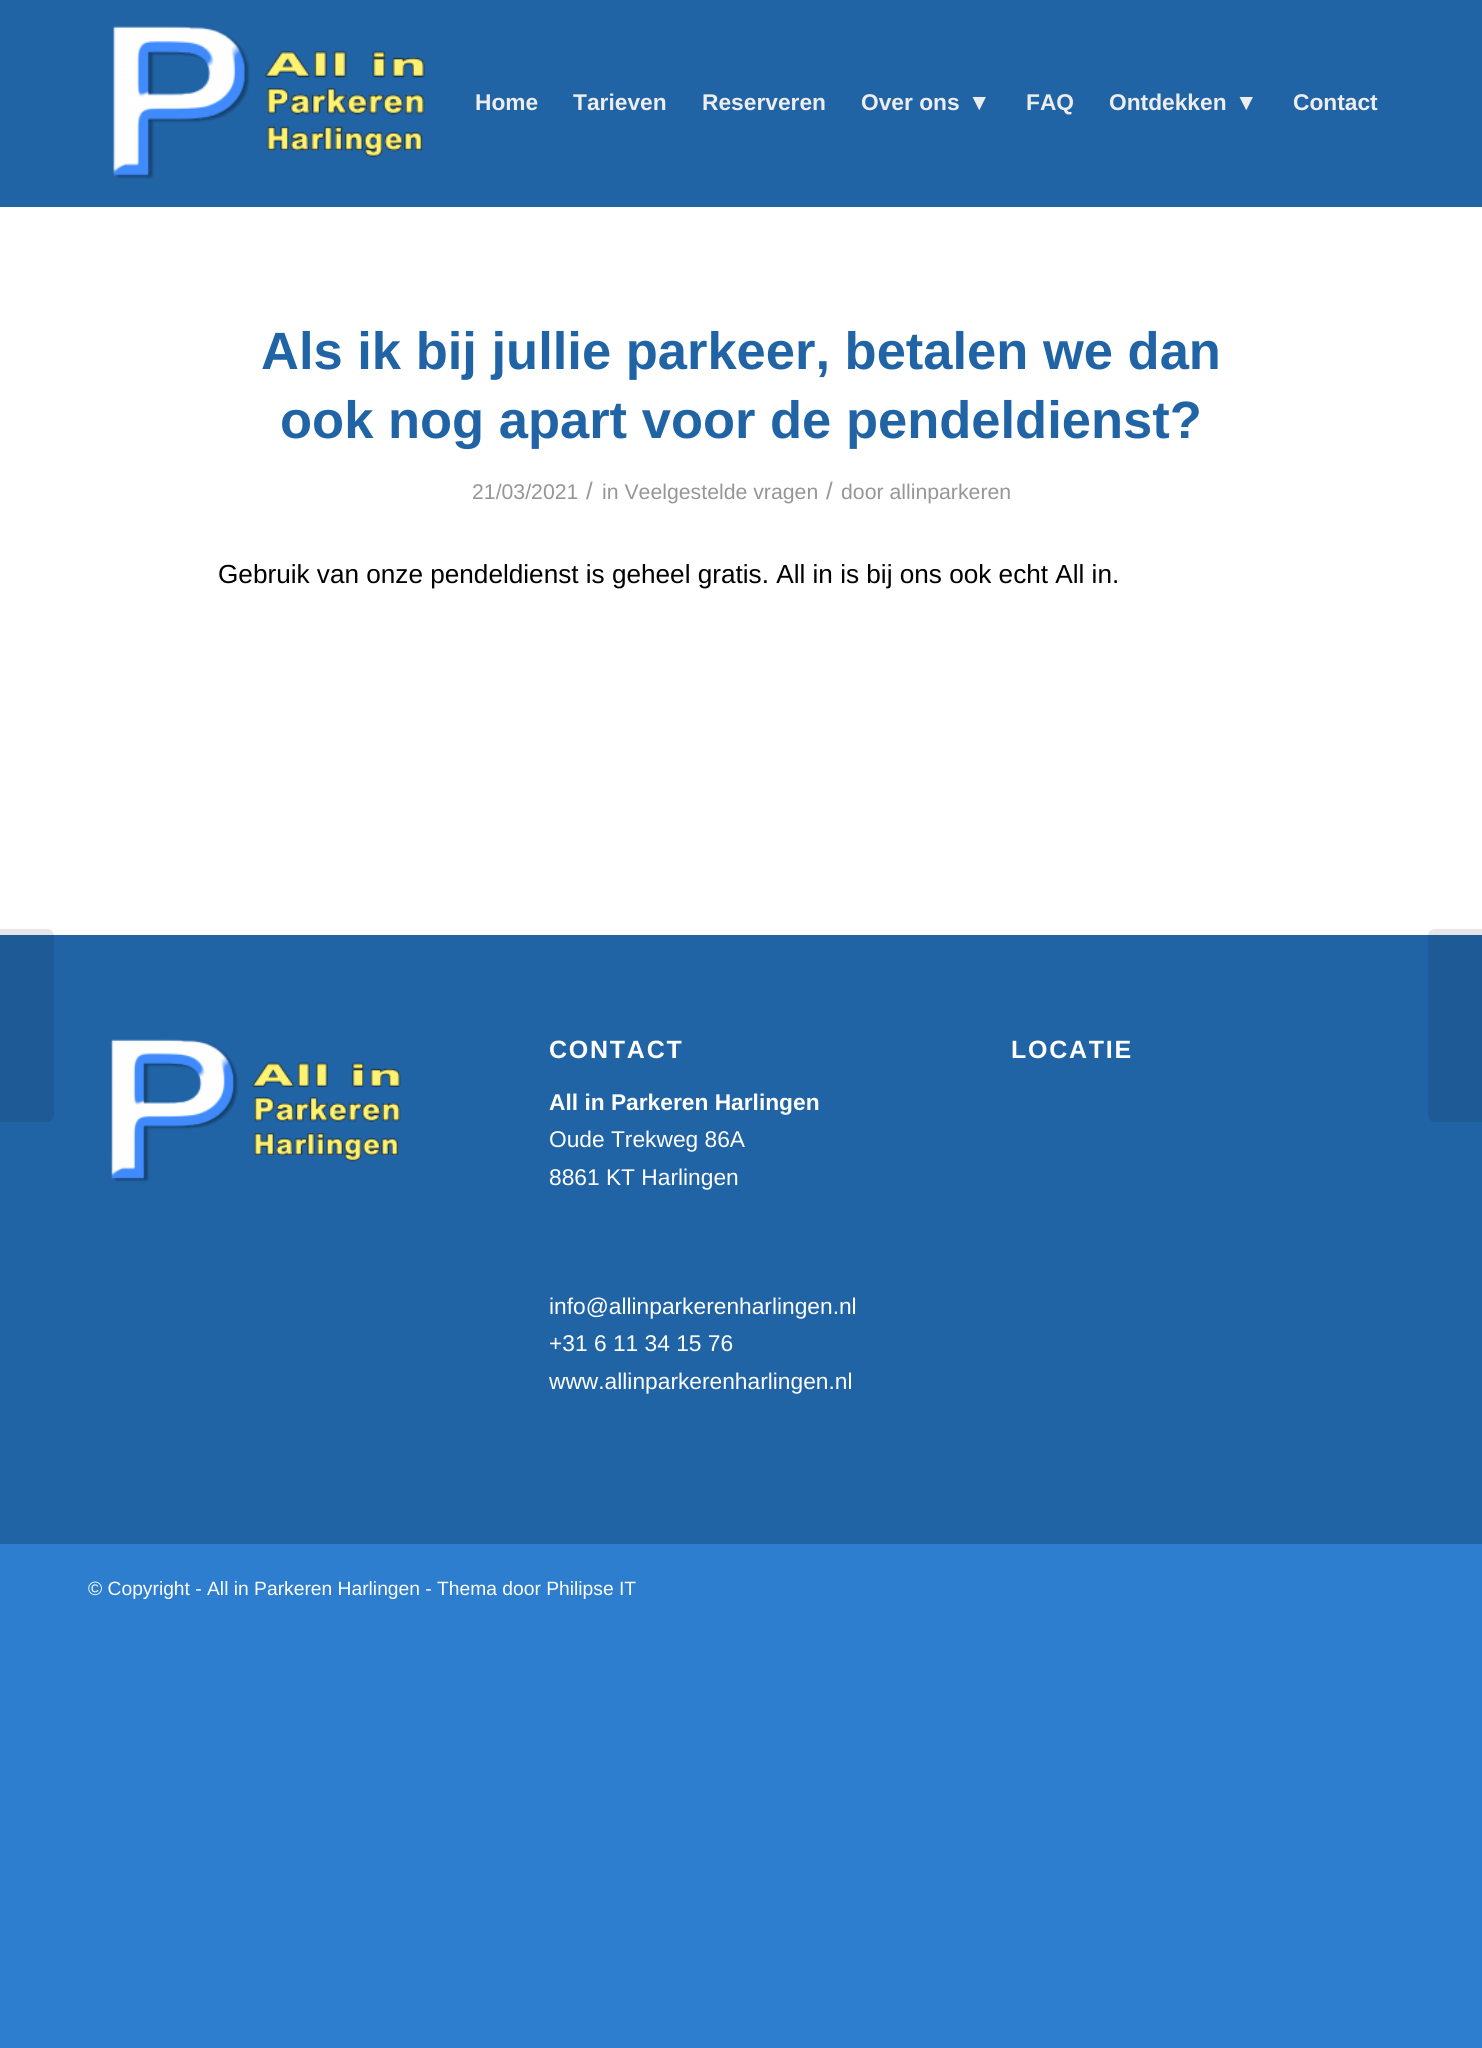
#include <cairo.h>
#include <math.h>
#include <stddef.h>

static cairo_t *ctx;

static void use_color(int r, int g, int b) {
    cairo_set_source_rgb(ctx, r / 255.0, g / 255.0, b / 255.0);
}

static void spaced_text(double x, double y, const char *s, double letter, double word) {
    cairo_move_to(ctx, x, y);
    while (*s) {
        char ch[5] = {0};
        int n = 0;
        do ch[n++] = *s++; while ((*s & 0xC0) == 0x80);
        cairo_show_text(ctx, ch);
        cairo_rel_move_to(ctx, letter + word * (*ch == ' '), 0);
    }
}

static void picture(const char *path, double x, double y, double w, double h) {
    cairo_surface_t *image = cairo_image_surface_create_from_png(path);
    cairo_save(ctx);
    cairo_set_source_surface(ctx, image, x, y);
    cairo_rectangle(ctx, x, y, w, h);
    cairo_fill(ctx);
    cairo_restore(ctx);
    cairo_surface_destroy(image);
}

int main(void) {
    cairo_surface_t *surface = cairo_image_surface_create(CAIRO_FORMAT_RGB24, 1482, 2048);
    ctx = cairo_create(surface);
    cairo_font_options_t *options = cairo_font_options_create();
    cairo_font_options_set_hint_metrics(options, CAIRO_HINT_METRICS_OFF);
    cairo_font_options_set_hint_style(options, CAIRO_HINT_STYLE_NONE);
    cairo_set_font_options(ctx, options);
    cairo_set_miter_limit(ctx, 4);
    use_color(45, 126, 206);
    cairo_paint(ctx);
    use_color(33, 100, 166);
    cairo_rectangle(ctx, 0, 0, 1482, 207);
    cairo_fill(ctx);
    picture("img1.png", 113, 26, 312, 153);
    cairo_select_font_face(ctx, "Liberation Sans", CAIRO_FONT_SLANT_NORMAL, CAIRO_FONT_WEIGHT_BOLD);
    cairo_set_font_size(ctx, 22.75);
    use_color(237, 237, 237);
    cairo_move_to(ctx, 475, 110);
    cairo_show_text(ctx, "Home");
    cairo_move_to(ctx, 573, 110);
    cairo_show_text(ctx, "Tarieven");
    cairo_move_to(ctx, 702, 110);
    cairo_show_text(ctx, "Reserveren");
    cairo_move_to(ctx, 861, 110);
    cairo_show_text(ctx, "Over ons");
    cairo_move_to(ctx, 968, 110);
    cairo_show_text(ctx, "▼");
    cairo_move_to(ctx, 1026, 110);
    cairo_show_text(ctx, "FAQ");
    cairo_move_to(ctx, 1109, 110);
    cairo_show_text(ctx, "Ontdekken");
    cairo_move_to(ctx, 1235, 110);
    cairo_show_text(ctx, "▼");
    cairo_move_to(ctx, 1293, 110);
    cairo_show_text(ctx, "Contact");
    use_color(33, 100, 166);
    cairo_rectangle(ctx, 0, 935, 1482, 609);
    cairo_fill(ctx);
    use_color(255, 255, 255);
    cairo_rectangle(ctx, 0, 207, 1482, 728);
    cairo_fill(ctx);
    cairo_set_source_rgba(ctx, 0, 0, 0, 0.1);
    cairo_new_path(ctx);
    cairo_move_to(ctx, 0, 929);
    cairo_line_to(ctx, 47, 929);
    cairo_curve_to(ctx, 51, 929, 54, 932, 54, 936);
    cairo_line_to(ctx, 54, 1115);
    cairo_curve_to(ctx, 54, 1119, 51, 1122, 47, 1122);
    cairo_line_to(ctx, 0, 1122);
    cairo_close_path(ctx);
    cairo_fill(ctx);
    cairo_set_font_size(ctx, 52.5);
    use_color(33, 100, 166);
    cairo_move_to(ctx, 261, 369);
    cairo_show_text(ctx, "Als ik bij jullie parkeer, betalen we dan");
    cairo_move_to(ctx, 280, 438);
    cairo_show_text(ctx, "ook nog apart voor de pendeldienst?");
    cairo_select_font_face(ctx, "Liberation Sans", CAIRO_FONT_SLANT_NORMAL, CAIRO_FONT_WEIGHT_NORMAL);
    cairo_set_font_size(ctx, 21.25);
    use_color(150, 150, 150);
    cairo_move_to(ctx, 472, 499);
    cairo_show_text(ctx, "21/03/2021");
    cairo_set_font_size(ctx, 24);
    cairo_move_to(ctx, 586, 499);
    cairo_show_text(ctx, "/");
    cairo_set_font_size(ctx, 21.25);
    cairo_move_to(ctx, 602, 499);
    cairo_show_text(ctx, "in Veelgestelde vragen");
    cairo_set_font_size(ctx, 24);
    cairo_move_to(ctx, 826, 499);
    cairo_show_text(ctx, "/");
    cairo_set_font_size(ctx, 21.25);
    cairo_move_to(ctx, 841, 499);
    cairo_show_text(ctx, "door allinparkeren");
    cairo_set_font_size(ctx, 26.15);
    use_color(0, 0, 0);
    cairo_move_to(ctx, 218, 583);
    cairo_show_text(ctx, "Gebruik van onze pendeldienst is geheel gratis. All in is bij ons ook echt All in.");
    picture("img2.png", 111, 1039, 290, 143);
    cairo_select_font_face(ctx, "Liberation Sans", CAIRO_FONT_SLANT_NORMAL, CAIRO_FONT_WEIGHT_BOLD);
    cairo_set_font_size(ctx, 25);
    use_color(255, 255, 255);
    spaced_text(549, 1058, "CONTACT", 1.75, 0);
    cairo_set_font_size(ctx, 22.75);
    cairo_move_to(ctx, 549, 1110);
    cairo_show_text(ctx, "All in Parkeren Harlingen");
    cairo_select_font_face(ctx, "Liberation Sans", CAIRO_FONT_SLANT_NORMAL, CAIRO_FONT_WEIGHT_NORMAL);
    cairo_move_to(ctx, 549, 1147);
    cairo_show_text(ctx, "Oude Trekweg 86A");
    cairo_move_to(ctx, 549, 1185);
    cairo_show_text(ctx, "8861 KT Harlingen");
    cairo_move_to(ctx, 549, 1314);
    cairo_show_text(ctx, "info@allinparkerenharlingen.nl");
    cairo_move_to(ctx, 549, 1351);
    cairo_show_text(ctx, "+31 6 11 34 15 76");
    cairo_move_to(ctx, 549, 1389);
    cairo_show_text(ctx, "www.allinparkerenharlingen.nl");
    cairo_select_font_face(ctx, "Liberation Sans", CAIRO_FONT_SLANT_NORMAL, CAIRO_FONT_WEIGHT_BOLD);
    cairo_set_font_size(ctx, 25);
    spaced_text(1011, 1058, "LOCATIE", 1.75, 0);
    cairo_select_font_face(ctx, "Liberation Sans", CAIRO_FONT_SLANT_NORMAL, CAIRO_FONT_WEIGHT_NORMAL);
    cairo_set_font_size(ctx, 19.25);
    cairo_move_to(ctx, 88, 1595);
    cairo_show_text(ctx, "© Copyright - All in Parkeren Harlingen - Thema door Philipse IT");
    cairo_set_source_rgba(ctx, 0, 0, 0, 0.1);
    cairo_new_path(ctx);
    cairo_move_to(ctx, 1435, 929);
    cairo_line_to(ctx, 1482, 929);
    cairo_line_to(ctx, 1482, 1122);
    cairo_line_to(ctx, 1435, 1122);
    cairo_curve_to(ctx, 1431, 1122, 1428, 1119, 1428, 1115);
    cairo_line_to(ctx, 1428, 936);
    cairo_curve_to(ctx, 1428, 932, 1431, 929, 1435, 929);
    cairo_close_path(ctx);
    cairo_fill(ctx);
    cairo_surface_write_to_png(surface, "result.png");
    cairo_font_options_destroy(options);
    cairo_destroy(ctx);
    cairo_surface_destroy(surface);
    return 0;
}
